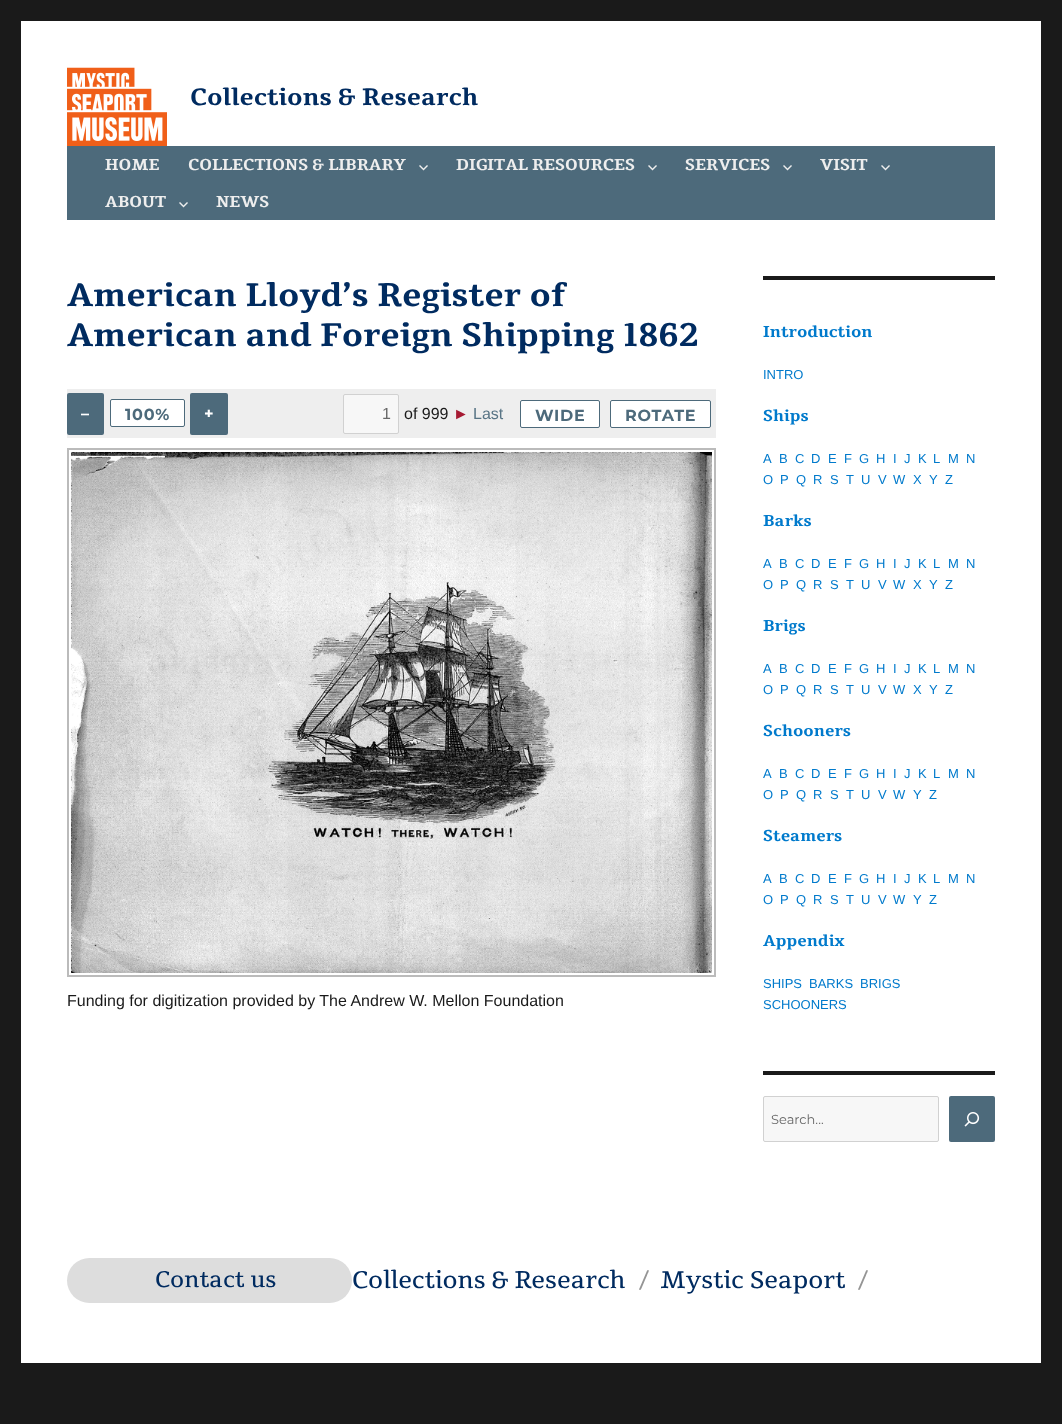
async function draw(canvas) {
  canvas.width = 1062;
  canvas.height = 1424;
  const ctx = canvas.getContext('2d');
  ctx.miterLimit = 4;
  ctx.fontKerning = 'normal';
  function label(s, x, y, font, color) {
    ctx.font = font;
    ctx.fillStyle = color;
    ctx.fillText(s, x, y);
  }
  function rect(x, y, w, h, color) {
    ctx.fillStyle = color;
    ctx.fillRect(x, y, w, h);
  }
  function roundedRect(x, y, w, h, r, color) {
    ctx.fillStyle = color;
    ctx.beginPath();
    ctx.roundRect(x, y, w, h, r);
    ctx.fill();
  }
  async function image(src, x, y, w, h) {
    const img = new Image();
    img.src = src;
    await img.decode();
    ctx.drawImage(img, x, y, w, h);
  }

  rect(0, 0, 1062, 1424, '#1a1a1a');
  rect(21, 21, 1020, 1342, '#fff');
  await image('assets/img1.png', 67, 67, 100, 79);
  label('Collections & Research', 190, 105, 'bold 24px Tienne', '#002b60');
  rect(67, 146, 928, 74, '#4d6a7b');
  label('HOME', 105, 170, 'bold 16px Tienne', '#eee');
  label('COLLECTIONS & LIBRARY', 188, 170, 'bold 16px Tienne', '#eee');
  await image('assets/img2.png', 419, 165, 9, 6);
  label('DIGITAL RESOURCES', 456, 170, 'bold 16px Tienne', '#eee');
  await image('assets/img2.png', 648, 165, 9, 6);
  label('SERVICES', 685, 170, 'bold 16px Tienne', '#eee');
  await image('assets/img2.png', 783, 165, 9, 6);
  label('VISIT', 820, 170, 'bold 16px Tienne', '#eee');
  await image('assets/img2.png', 881, 165, 9, 6);
  label('ABOUT', 105, 207, 'bold 16px Tienne', '#eee');
  await image('assets/img2.png', 179, 202, 9, 6);
  label('NEWS', 216, 207, 'bold 16px Tienne', '#eee');
  label('American Lloyd’s Register of', 67, 306, 'bold 33px Tienne', '#002b60');
  label('American and Foreign Shipping 1862', 67, 346, 'bold 33px Tienne', '#002b60');
  rect(67, 389, 649, 49, '#eee');
  roundedRect(67, 393, 37, 42, 2, '#4d6a7b');
  ctx.letterSpacing = '0.75px';
  label('–', 81, 419, 'bold 16px Montserrat', '#fff');
  ctx.beginPath();
  ctx.roundRect(110.5, 399.5, 74, 27, 1.5);
  ctx.fill();
  ctx.strokeStyle = '#4d6a7b';
  ctx.stroke();
  label('100%', 125, 420, 'bold 16px Montserrat', '#4d6a7b');
  roundedRect(190, 393, 38, 42, 2, '#4d6a7b');
  label('+', 204, 419, 'bold 16px Montserrat', '#fff');
  ctx.fillStyle = '#f7f7f7';
  ctx.beginPath();
  ctx.roundRect(343.5, 394.5, 55, 39, 1.5);
  ctx.fill();
  ctx.strokeStyle = '#d1d1d1';
  ctx.stroke();
  ctx.letterSpacing = '0px';
  label('1', 382, 419, '16px Liberation Sans', '#686868');
  label('of 999', 404, 419, '16px Liberation Sans', '#1a1a1a');
  label('►', 453, 419, '16px Liberation Sans', '#a61a32');
  label('Last', 473, 419, '16px Liberation Sans', '#587485');
  ctx.fillStyle = '#fff';
  ctx.beginPath();
  ctx.roundRect(520.5, 400.5, 79, 27, 1.5);
  ctx.fill();
  ctx.strokeStyle = '#4d6a7b';
  ctx.stroke();
  ctx.letterSpacing = '0.75px';
  label('WIDE', 535, 421, 'bold 16px Montserrat', '#4d6a7b');
  ctx.fillStyle = '#fff';
  ctx.beginPath();
  ctx.roundRect(610.5, 400.5, 100, 27, 1.5);
  ctx.fill();
  ctx.stroke();
  label('ROTATE', 625, 421, 'bold 16px Montserrat', '#4d6a7b');
  ctx.strokeStyle = '#bbb';
  ctx.lineWidth = 2;
  ctx.strokeRect(68, 449, 647, 527);
  await image('assets/img3.png', 71, 452, 641, 521);
  ctx.letterSpacing = '0px';
  label('Funding for digitization provided by The Andrew W. Mellon Foundation', 67, 1006, '16px Liberation Sans', '#1a1a1a');
  rect(763, 276, 232, 4, '#1a1a1a');
  label('Introduction', 763, 337, 'bold 16px Tienne', '#007acc');
  label('INTRO', 763, 379, '13px Liberation Sans', '#007acc');
  label('Ships', 763, 421, 'bold 16px Tienne', '#007acc');
  label('A', 763, 463, '13px Liberation Sans', '#007acc');
  label('B', 779, 463, '13px Liberation Sans', '#007acc');
  label('C', 795, 463, '13px Liberation Sans', '#007acc');
  label('D', 811, 463, '13px Liberation Sans', '#007acc');
  label('E', 828, 463, '13px Liberation Sans', '#007acc');
  label('F', 844, 463, '13px Liberation Sans', '#007acc');
  label('G', 859, 463, '13px Liberation Sans', '#007acc');
  label('H', 876, 463, '13px Liberation Sans', '#007acc');
  label('I', 893, 463, '13px Liberation Sans', '#007acc');
  label('J', 904, 463, '13px Liberation Sans', '#007acc');
  label('K', 918, 463, '13px Liberation Sans', '#007acc');
  label('L', 933, 463, '13px Liberation Sans', '#007acc');
  label('M', 948, 463, '13px Liberation Sans', '#007acc');
  label('N', 966, 463, '13px Liberation Sans', '#007acc');
  label('O', 763, 484, '13px Liberation Sans', '#007acc');
  label('P', 780, 484, '13px Liberation Sans', '#007acc');
  label('Q', 796, 484, '13px Liberation Sans', '#007acc');
  label('R', 813, 484, '13px Liberation Sans', '#007acc');
  label('S', 830, 484, '13px Liberation Sans', '#007acc');
  label('T', 846, 484, '13px Liberation Sans', '#007acc');
  label('U', 861, 484, '13px Liberation Sans', '#007acc');
  label('V', 878, 484, '13px Liberation Sans', '#007acc');
  label('W', 893, 484, '13px Liberation Sans', '#007acc');
  label('X', 913, 484, '13px Liberation Sans', '#007acc');
  label('Y', 929, 484, '13px Liberation Sans', '#007acc');
  label('Z', 945, 484, '13px Liberation Sans', '#007acc');
  label('Barks', 763, 526, 'bold 16px Tienne', '#007acc');
  label('A', 763, 568, '13px Liberation Sans', '#007acc');
  label('B', 779, 568, '13px Liberation Sans', '#007acc');
  label('C', 795, 568, '13px Liberation Sans', '#007acc');
  label('D', 811, 568, '13px Liberation Sans', '#007acc');
  label('E', 828, 568, '13px Liberation Sans', '#007acc');
  label('F', 844, 568, '13px Liberation Sans', '#007acc');
  label('G', 859, 568, '13px Liberation Sans', '#007acc');
  label('H', 876, 568, '13px Liberation Sans', '#007acc');
  label('I', 893, 568, '13px Liberation Sans', '#007acc');
  label('J', 904, 568, '13px Liberation Sans', '#007acc');
  label('K', 918, 568, '13px Liberation Sans', '#007acc');
  label('L', 933, 568, '13px Liberation Sans', '#007acc');
  label('M', 948, 568, '13px Liberation Sans', '#007acc');
  label('N', 966, 568, '13px Liberation Sans', '#007acc');
  label('O', 763, 589, '13px Liberation Sans', '#007acc');
  label('P', 780, 589, '13px Liberation Sans', '#007acc');
  label('Q', 796, 589, '13px Liberation Sans', '#007acc');
  label('R', 813, 589, '13px Liberation Sans', '#007acc');
  label('S', 830, 589, '13px Liberation Sans', '#007acc');
  label('T', 846, 589, '13px Liberation Sans', '#007acc');
  label('U', 861, 589, '13px Liberation Sans', '#007acc');
  label('V', 878, 589, '13px Liberation Sans', '#007acc');
  label('W', 893, 589, '13px Liberation Sans', '#007acc');
  label('X', 913, 589, '13px Liberation Sans', '#007acc');
  label('Y', 929, 589, '13px Liberation Sans', '#007acc');
  label('Z', 945, 589, '13px Liberation Sans', '#007acc');
  label('Brigs', 763, 631, 'bold 16px Tienne', '#007acc');
  label('A', 763, 673, '13px Liberation Sans', '#007acc');
  label('B', 779, 673, '13px Liberation Sans', '#007acc');
  label('C', 795, 673, '13px Liberation Sans', '#007acc');
  label('D', 811, 673, '13px Liberation Sans', '#007acc');
  label('E', 828, 673, '13px Liberation Sans', '#007acc');
  label('F', 844, 673, '13px Liberation Sans', '#007acc');
  label('G', 859, 673, '13px Liberation Sans', '#007acc');
  label('H', 876, 673, '13px Liberation Sans', '#007acc');
  label('I', 893, 673, '13px Liberation Sans', '#007acc');
  label('J', 904, 673, '13px Liberation Sans', '#007acc');
  label('K', 918, 673, '13px Liberation Sans', '#007acc');
  label('L', 933, 673, '13px Liberation Sans', '#007acc');
  label('M', 948, 673, '13px Liberation Sans', '#007acc');
  label('N', 966, 673, '13px Liberation Sans', '#007acc');
  label('O', 763, 694, '13px Liberation Sans', '#007acc');
  label('P', 780, 694, '13px Liberation Sans', '#007acc');
  label('Q', 796, 694, '13px Liberation Sans', '#007acc');
  label('R', 813, 694, '13px Liberation Sans', '#007acc');
  label('S', 830, 694, '13px Liberation Sans', '#007acc');
  label('T', 846, 694, '13px Liberation Sans', '#007acc');
  label('U', 861, 694, '13px Liberation Sans', '#007acc');
  label('V', 878, 694, '13px Liberation Sans', '#007acc');
  label('W', 893, 694, '13px Liberation Sans', '#007acc');
  label('X', 913, 694, '13px Liberation Sans', '#007acc');
  label('Y', 929, 694, '13px Liberation Sans', '#007acc');
  label('Z', 945, 694, '13px Liberation Sans', '#007acc');
  label('Schooners', 763, 736, 'bold 16px Tienne', '#007acc');
  label('A', 763, 778, '13px Liberation Sans', '#007acc');
  label('B', 779, 778, '13px Liberation Sans', '#007acc');
  label('C', 795, 778, '13px Liberation Sans', '#007acc');
  label('D', 811, 778, '13px Liberation Sans', '#007acc');
  label('E', 828, 778, '13px Liberation Sans', '#007acc');
  label('F', 844, 778, '13px Liberation Sans', '#007acc');
  label('G', 859, 778, '13px Liberation Sans', '#007acc');
  label('H', 876, 778, '13px Liberation Sans', '#007acc');
  label('I', 893, 778, '13px Liberation Sans', '#007acc');
  label('J', 904, 778, '13px Liberation Sans', '#007acc');
  label('K', 918, 778, '13px Liberation Sans', '#007acc');
  label('L', 933, 778, '13px Liberation Sans', '#007acc');
  label('M', 948, 778, '13px Liberation Sans', '#007acc');
  label('N', 966, 778, '13px Liberation Sans', '#007acc');
  label('O', 763, 799, '13px Liberation Sans', '#007acc');
  label('P', 780, 799, '13px Liberation Sans', '#007acc');
  label('Q', 796, 799, '13px Liberation Sans', '#007acc');
  label('R', 813, 799, '13px Liberation Sans', '#007acc');
  label('S', 830, 799, '13px Liberation Sans', '#007acc');
  label('T', 846, 799, '13px Liberation Sans', '#007acc');
  label('U', 861, 799, '13px Liberation Sans', '#007acc');
  label('V', 878, 799, '13px Liberation Sans', '#007acc');
  label('W', 893, 799, '13px Liberation Sans', '#007acc');
  label('Y', 913, 799, '13px Liberation Sans', '#007acc');
  label('Z', 929, 799, '13px Liberation Sans', '#007acc');
  label('Steamers', 763, 841, 'bold 16px Tienne', '#007acc');
  label('A', 763, 883, '13px Liberation Sans', '#007acc');
  label('B', 779, 883, '13px Liberation Sans', '#007acc');
  label('C', 795, 883, '13px Liberation Sans', '#007acc');
  label('D', 811, 883, '13px Liberation Sans', '#007acc');
  label('E', 828, 883, '13px Liberation Sans', '#007acc');
  label('F', 844, 883, '13px Liberation Sans', '#007acc');
  label('G', 859, 883, '13px Liberation Sans', '#007acc');
  label('H', 876, 883, '13px Liberation Sans', '#007acc');
  label('I', 893, 883, '13px Liberation Sans', '#007acc');
  label('J', 904, 883, '13px Liberation Sans', '#007acc');
  label('K', 918, 883, '13px Liberation Sans', '#007acc');
  label('L', 933, 883, '13px Liberation Sans', '#007acc');
  label('M', 948, 883, '13px Liberation Sans', '#007acc');
  label('N', 966, 883, '13px Liberation Sans', '#007acc');
  label('O', 763, 904, '13px Liberation Sans', '#007acc');
  label('P', 780, 904, '13px Liberation Sans', '#007acc');
  label('Q', 796, 904, '13px Liberation Sans', '#007acc');
  label('R', 813, 904, '13px Liberation Sans', '#007acc');
  label('S', 830, 904, '13px Liberation Sans', '#007acc');
  label('T', 846, 904, '13px Liberation Sans', '#007acc');
  label('U', 861, 904, '13px Liberation Sans', '#007acc');
  label('V', 878, 904, '13px Liberation Sans', '#007acc');
  label('W', 893, 904, '13px Liberation Sans', '#007acc');
  label('Y', 913, 904, '13px Liberation Sans', '#007acc');
  label('Z', 929, 904, '13px Liberation Sans', '#007acc');
  label('Appendix', 763, 946, 'bold 16px Tienne', '#007acc');
  label('SHIPS', 763, 988, '13px Liberation Sans', '#007acc');
  label('BARKS', 809, 988, '13px Liberation Sans', '#007acc');
  label('BRIGS', 860, 988, '13px Liberation Sans', '#007acc');
  label('SCHOONERS', 763, 1009, '13px Liberation Sans', '#007acc');
  rect(763, 1071, 232, 4, '#1a1a1a');
  ctx.fillStyle = '#f7f7f7';
  ctx.beginPath();
  ctx.roundRect(763.5, 1096.5, 175, 45, 1.5);
  ctx.fill();
  ctx.strokeStyle = '#d1d1d1';
  ctx.lineWidth = 1;
  ctx.stroke();
  label('Search...', 771, 1124, '13px Montserrat', '#686868');
  roundedRect(949, 1096, 46, 46, 2, '#4d6a7b');
  await image('assets/img4.png', 964, 1112, 16, 15);
  roundedRect(67, 1258, 285, 45, 22.5, '#ddd');
  label('Contact us', 155, 1287, '22.5px Tienne', '#002b60');
  label('Collections & Research', 352, 1288, '24px Tienne', '#002b60');
  label('/', 639, 1288, '24px Tienne', '#959595');
  label('Mystic Seaport', 660, 1288, '24px Tienne', '#002b60');
  label('/', 858, 1288, '24px Tienne', '#959595');
}

draw(document.querySelector('canvas'));
